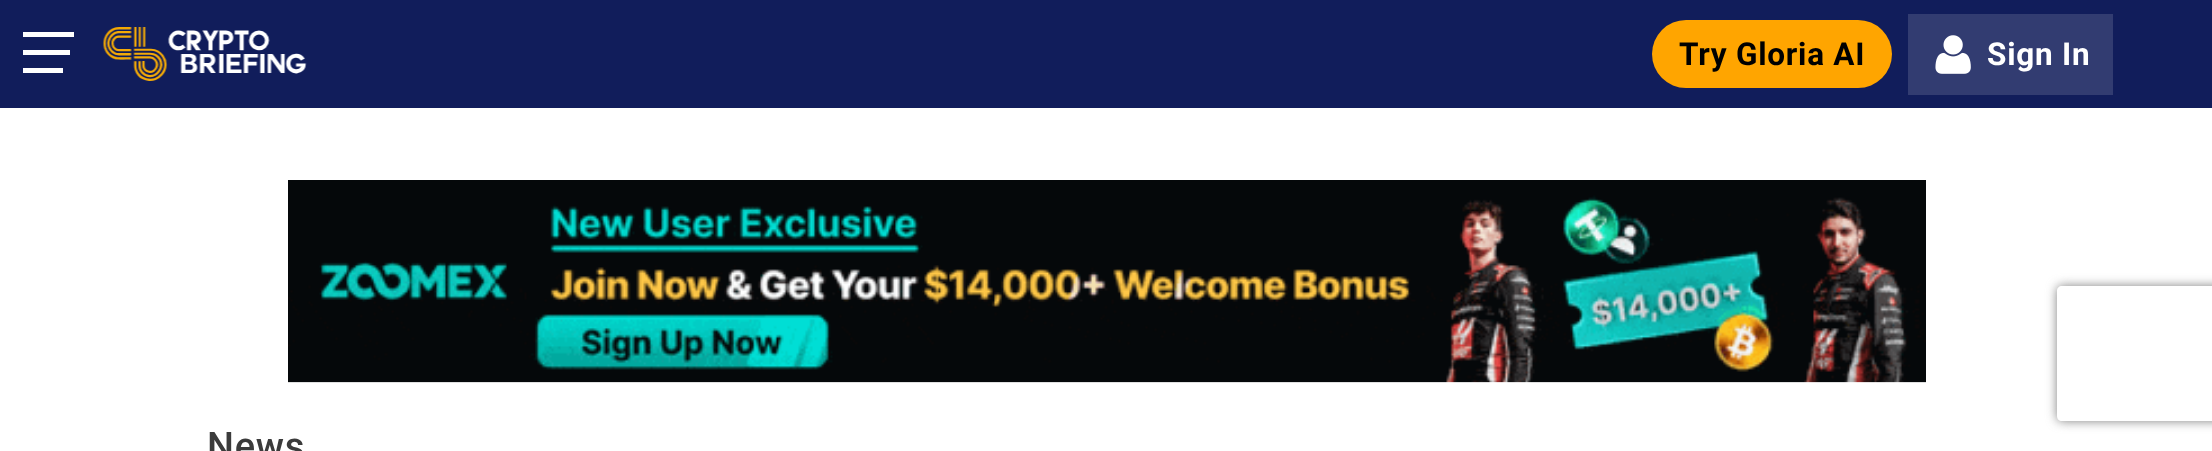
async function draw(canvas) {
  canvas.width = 2212;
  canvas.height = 451;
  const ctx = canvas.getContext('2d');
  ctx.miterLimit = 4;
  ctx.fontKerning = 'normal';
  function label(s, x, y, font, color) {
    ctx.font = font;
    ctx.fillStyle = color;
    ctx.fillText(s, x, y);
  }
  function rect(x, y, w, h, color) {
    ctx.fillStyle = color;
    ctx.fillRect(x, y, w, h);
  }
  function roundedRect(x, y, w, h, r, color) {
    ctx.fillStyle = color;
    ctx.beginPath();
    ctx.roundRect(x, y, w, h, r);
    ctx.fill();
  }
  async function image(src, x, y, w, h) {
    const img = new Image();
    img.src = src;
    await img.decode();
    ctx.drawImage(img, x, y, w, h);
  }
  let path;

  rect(0, 0, 2212, 451, '#fff');
  rect(0, 0, 2212, 108, '#111d5b');
  rect(23, 32, 51, 5, '#fff');
  rect(23, 50, 47, 5, '#fff');
  rect(23, 68, 40, 5, '#fff');
  await image('assets/img1.png', 103, 27, 204, 54);
  roundedRect(1652, 20, 240, 68, 34, '#ffa500');
  ctx.letterSpacing = '0.75px';
  label('Try Gloria AI', 1679, 65, 'bold 31.5px Roboto', '#000');
  rect(1908, 14, 205, 81, '#323c71');
  await image('assets/img2.png', 1935, 35, 36, 39);
  label('Sign In', 1987, 65, 'bold 31.5px Roboto', '#fff');
  ctx.save();
  path = new Path2D('M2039 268H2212V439H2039ZM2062 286H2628C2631 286 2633 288 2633 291V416C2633 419 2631 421 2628 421H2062C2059 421 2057 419 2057 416V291C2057 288 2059 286 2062 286Z');
  ctx.clip(path, 'evenodd');
  ctx.fillStyle = '#808080';
  ctx.filter = 'blur(5.5px)';
  ctx.beginPath();
  ctx.roundRect(2057, 286, 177, 135, 5);
  ctx.fill();
  ctx.filter = 'none';
  ctx.restore();
  await image('assets/img3.png', 288, 180, 1638, 203);
  label('News', 207, 459, '500 38px Roboto', '#3b3b3b');
}

draw(document.querySelector('canvas'));
